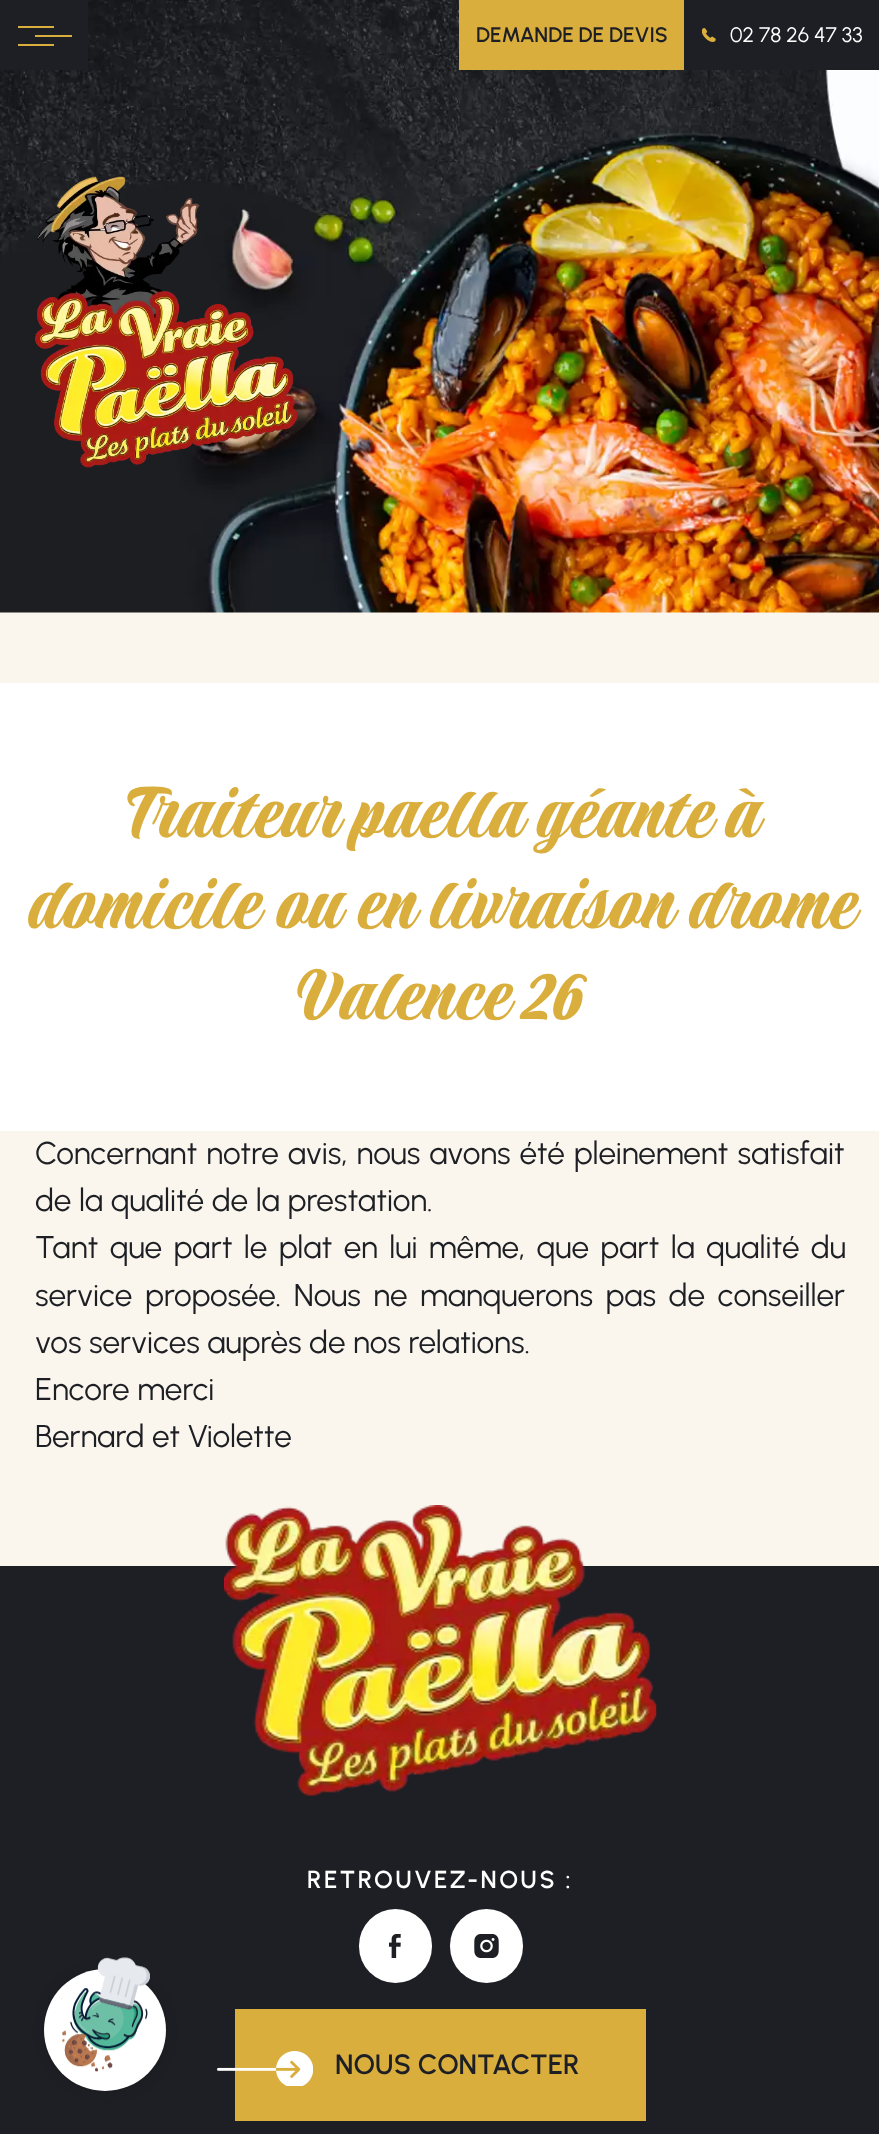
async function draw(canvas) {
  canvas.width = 879;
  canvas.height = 2134;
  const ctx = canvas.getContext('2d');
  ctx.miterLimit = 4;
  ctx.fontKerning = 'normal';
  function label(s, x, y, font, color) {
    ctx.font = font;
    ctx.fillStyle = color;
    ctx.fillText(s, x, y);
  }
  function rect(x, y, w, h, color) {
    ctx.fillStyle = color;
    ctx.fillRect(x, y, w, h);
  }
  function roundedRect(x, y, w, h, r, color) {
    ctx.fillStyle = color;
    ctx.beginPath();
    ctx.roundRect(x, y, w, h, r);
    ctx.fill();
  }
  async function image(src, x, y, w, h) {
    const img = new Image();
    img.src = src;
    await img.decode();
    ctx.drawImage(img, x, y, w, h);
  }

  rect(0, 0, 879, 2134, '#faf6ed');
  await image('assets/img3.png', 0, 0, 879, 613);
  rect(0, 0, 88, 70, '#1d1f24');
  rect(18, 26, 36, 2, '#d9ae3d');
  rect(35, 35, 37, 2, '#d9ae3d');
  rect(18, 44, 36, 2, '#d9ae3d');
  rect(459, 0, 225, 70, '#d9ae3d');
  label('DEMANDE DE DEVIS', 476, 42, '600 21px Urbanist', '#1d1f24');
  rect(684, 0, 195, 70, '#1d1f24');
  await image('assets/img1.png', 702, 28, 14, 14);
  label('02 78 26 47 33', 730, 42, '21px Urbanist', '#fff');
  await image('assets/img2.png', 35, 176, 263, 292);
  rect(0, 683, 879, 448, '#fff');
  label('Traiteur paella géante à', 123, 837, '82.25px Praise', '#d9ae3d');
  label('domicile ou en livraison drome', 26, 928, '82.25px Praise', '#d9ae3d');
  label('Valence 26', 296, 1019, '82.25px Praise', '#d9ae3d');
  ctx.wordSpacing = '1.5px';
  label('Concernant notre avis, nous avons été pleinement satisfait', 35, 1164, '31.5px Urbanist', '#1d1f24');
  ctx.wordSpacing = '0px';
  label('de la qualité de la prestation.', 35, 1211, '31.5px Urbanist', '#1d1f24');
  ctx.wordSpacing = '3.75px';
  label('Tant que part le plat en lui même, que part la qualité du', 35, 1258, '31.5px Urbanist', '#1d1f24');
  ctx.wordSpacing = '5px';
  label('service proposée. Nous ne manquerons pas de conseiller', 35, 1306, '31.5px Urbanist', '#1d1f24');
  ctx.wordSpacing = '0px';
  label('vos services auprès de nos relations.', 35, 1353, '31.5px Urbanist', '#1d1f24');
  label('Encore merci', 35, 1400, '31.5px Urbanist', '#1d1f24');
  label('Bernard et Violette', 35, 1447, '31.5px Urbanist', '#1d1f24');
  rect(0, 1566, 879, 568, '#1d1f24');
  ctx.fillStyle = '#00000066';
  ctx.filter = 'blur(9px)';
  ctx.beginPath();
  ctx.roundRect(53, 1978, 105, 105, 52.5);
  ctx.fill();
  ctx.filter = 'none';
  ctx.fillStyle = '#fff';
  ctx.beginPath();
  ctx.arc(105, 2030, 61, 0, 2 * Math.PI);
  ctx.fill();
  await image('assets/img4.png', 62, 1957, 88, 116);
  await image('assets/img5.png', 224, 1505, 433, 291);
  ctx.letterSpacing = '2.5px';
  label('RETROUVEZ-NOUS :', 307, 1888, '600 24.5px Urbanist', '#fff');
  roundedRect(359, 1909, 73, 74, 36.5, '#fff');
  await image('assets/img6.png', 389, 1934, 12, 24);
  roundedRect(450, 1909, 73, 74, 36.5, '#fff');
  await image('assets/img7.png', 474, 1934, 25, 24);
  rect(235, 2009, 411, 112, '#d9ae3d');
  await image('assets/img8.png', 217, 2051, 96, 35);
  ctx.letterSpacing = '0px';
  label('NOUS CONTACTER', 335, 2074, '600 28px Urbanist', '#1d1f24');
}

draw(document.querySelector('canvas'));
